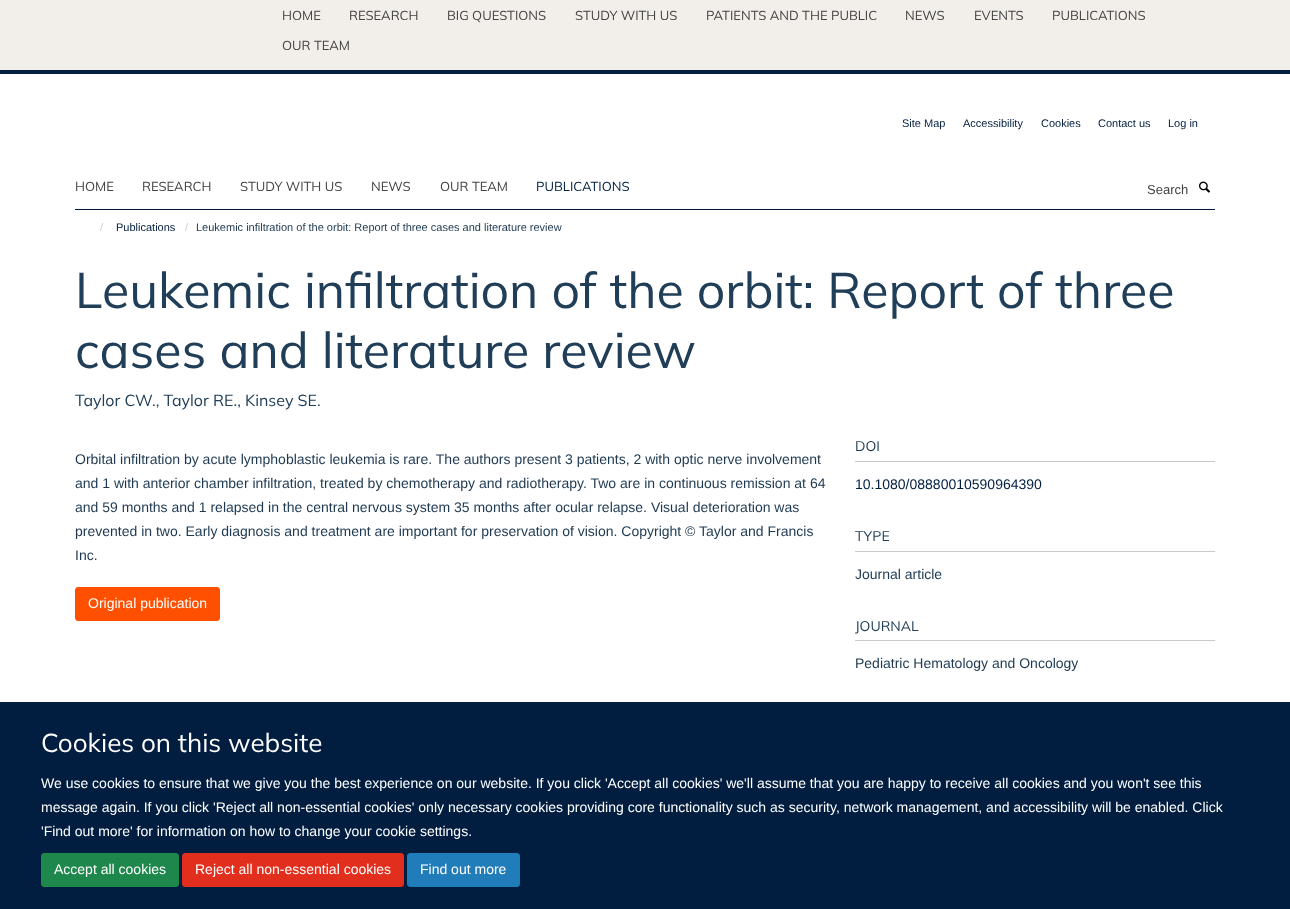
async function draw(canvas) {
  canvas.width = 1290;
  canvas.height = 909;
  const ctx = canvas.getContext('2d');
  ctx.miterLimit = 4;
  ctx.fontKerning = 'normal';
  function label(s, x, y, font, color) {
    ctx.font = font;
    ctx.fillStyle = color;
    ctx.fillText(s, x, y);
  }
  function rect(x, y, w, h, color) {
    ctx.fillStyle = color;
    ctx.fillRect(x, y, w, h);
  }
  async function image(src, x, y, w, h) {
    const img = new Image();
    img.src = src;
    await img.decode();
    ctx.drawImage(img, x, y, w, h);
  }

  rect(0, 0, 1290, 909, '#fff');
  rect(0, 0, 1290, 70, '#f2efeb');
  rect(0, 70, 1290, 4, '#011e41');
  label('HOME', 282, 20, '13px Mulish', '#444');
  label('RESEARCH', 349, 20, '13px Mulish', '#444');
  label('BIG QUESTIONS', 447, 20, '13px Mulish', '#444');
  label('STUDY WITH US', 575, 20, '13px Mulish', '#444');
  label('PATIENTS AND THE PUBLIC', 706, 20, '13px Mulish', '#444');
  label('NEWS', 905, 20, '13px Mulish', '#444');
  label('EVENTS', 974, 20, '13px Mulish', '#444');
  label('PUBLICATIONS', 1052, 20, '13px Mulish', '#444');
  label('OUR TEAM', 282, 50, '13px Mulish', '#444');
  label('Site Map', 902, 127, '11px Liberation Sans', '#011e41');
  label('Accessibility', 963, 127, '11px Liberation Sans', '#011e41');
  label('Cookies', 1041, 127, '11px Liberation Sans', '#011e41');
  label('Contact us', 1098, 127, '11px Liberation Sans', '#011e41');
  label('Log in', 1168, 127, '11px Liberation Sans', '#011e41');
  rect(75, 209, 1140, 1, '#011e41');
  label('HOME', 75, 191, '13px Mulish', '#444');
  label('RESEARCH', 142, 191, '13px Mulish', '#444');
  label('STUDY WITH US', 240, 191, '13px Mulish', '#444');
  label('NEWS', 371, 191, '13px Mulish', '#444');
  label('OUR TEAM', 440, 191, '13px Mulish', '#444');
  label('PUBLICATIONS', 536, 191, '13px Mulish', '#011e41');
  label('Search', 1147, 194, '13px Liberation Sans', '#444');
  await image('assets/img1.png', 1199, 181, 11, 12);
  label('/', 100, 231, '11px Liberation Sans', '#ccc');
  label('Publications', 116, 231, '11px Liberation Sans', '#011e41');
  label('/', 185, 231, '11px Liberation Sans', '#ccc');
  label('Leukemic infiltration of the orbit: Report of three cases and literature review', 196, 231, '11px Liberation Sans', '#1d3850');
  label('Leukemic infiltration of the orbit: Report of three', 75, 308, '50px Mulish', '#203e58');
  label('cases and literature review', 75, 368, '50px Mulish', '#203e58');
  label('Taylor CW., Taylor RE., Kinsey SE.', 75, 406, '16px Mulish', '#203e58');
  label('Orbital infiltration by acute lymphoblastic leukemia is rare. The authors present 3 patients, 2 with optic nerve involvement', 75, 464, '14px Liberation Sans', '#1d3850');
  label('and 1 with anterior chamber infiltration, treated by chemotherapy and radiotherapy. Two are in continuous remission at 64', 75, 488, '14px Liberation Sans', '#1d3850');
  label('and 59 months and 1 relapsed in the central nervous system 35 months after ocular relapse. Visual deterioration was', 75, 512, '14px Liberation Sans', '#1d3850');
  label('prevented in two. Early diagnosis and treatment are important for preservation of vision. Copyright © Taylor and Francis', 75, 536, '14px Liberation Sans', '#1d3850');
  label('Inc.', 75, 560, '14px Liberation Sans', '#1d3850');
  ctx.fillStyle = '#fe5000';
  ctx.beginPath();
  ctx.roundRect(75.5, 587.5, 144, 33, 2.5);
  ctx.fill();
  ctx.strokeStyle = '#fe5000';
  ctx.stroke();
  label('Original publication', 88, 608, '14px Liberation Sans', '#fff');
  rect(855, 461, 360, 1, '#c6cacf');
  label('DOI', 855, 451, '14px Mulish', '#203e58');
  label('10.1080/08880010590964390', 855, 489, '14px Liberation Sans', '#011e41');
  rect(855, 551, 360, 1, '#c6cacf');
  label('TYPE', 855, 541, '14px Mulish', '#203e58');
  label('Journal article', 855, 579, '14px Liberation Sans', '#1d3850');
  rect(855, 640, 360, 1, '#c6cacf');
  label('JOURNAL', 855, 631, '14px Mulish', '#203e58');
  label('Pediatric Hematology and Oncology', 855, 668, '14px Liberation Sans', '#1d3850');
  rect(0, 702, 1290, 207, '#011e41');
  label('Cookies on this website', 41, 752, '26px Mulish', '#fff');
  label('We use cookies to ensure that we give you the best experience on our website. If you click \'Accept all cookies\' we\'ll assume that you are happy to receive all cookies and you won\'t see this', 41, 788, '14px Liberation Sans', '#fff');
  label('message again. If you click \'Reject all non-essential cookies\' only necessary cookies providing core functionality such as security, network management, and accessibility will be enabled. Click', 41, 812, '14px Liberation Sans', '#fff');
  label('\'Find out more\' for information on how to change your cookie settings.', 41, 836, '14px Liberation Sans', '#fff');
  ctx.fillStyle = '#1e874b';
  ctx.beginPath();
  ctx.roundRect(41.5, 853.5, 137, 33, 2.5);
  ctx.fill();
  ctx.strokeStyle = '#1e874b';
  ctx.stroke();
  label('Accept all cookies', 54, 874, '14px Liberation Sans', '#fff');
  ctx.fillStyle = '#e22e1c';
  ctx.beginPath();
  ctx.roundRect(182.5, 853.5, 221, 33, 2.5);
  ctx.fill();
  ctx.strokeStyle = '#e22e1c';
  ctx.stroke();
  label('Reject all non-essential cookies', 195, 874, '14px Liberation Sans', '#fff');
  ctx.fillStyle = '#217cba';
  ctx.beginPath();
  ctx.roundRect(407.5, 853.5, 112, 33, 2.5);
  ctx.fill();
  ctx.strokeStyle = '#217cba';
  ctx.stroke();
  label('Find out more', 420, 874, '14px Liberation Sans', '#fff');
}

draw(document.querySelector('canvas'));
